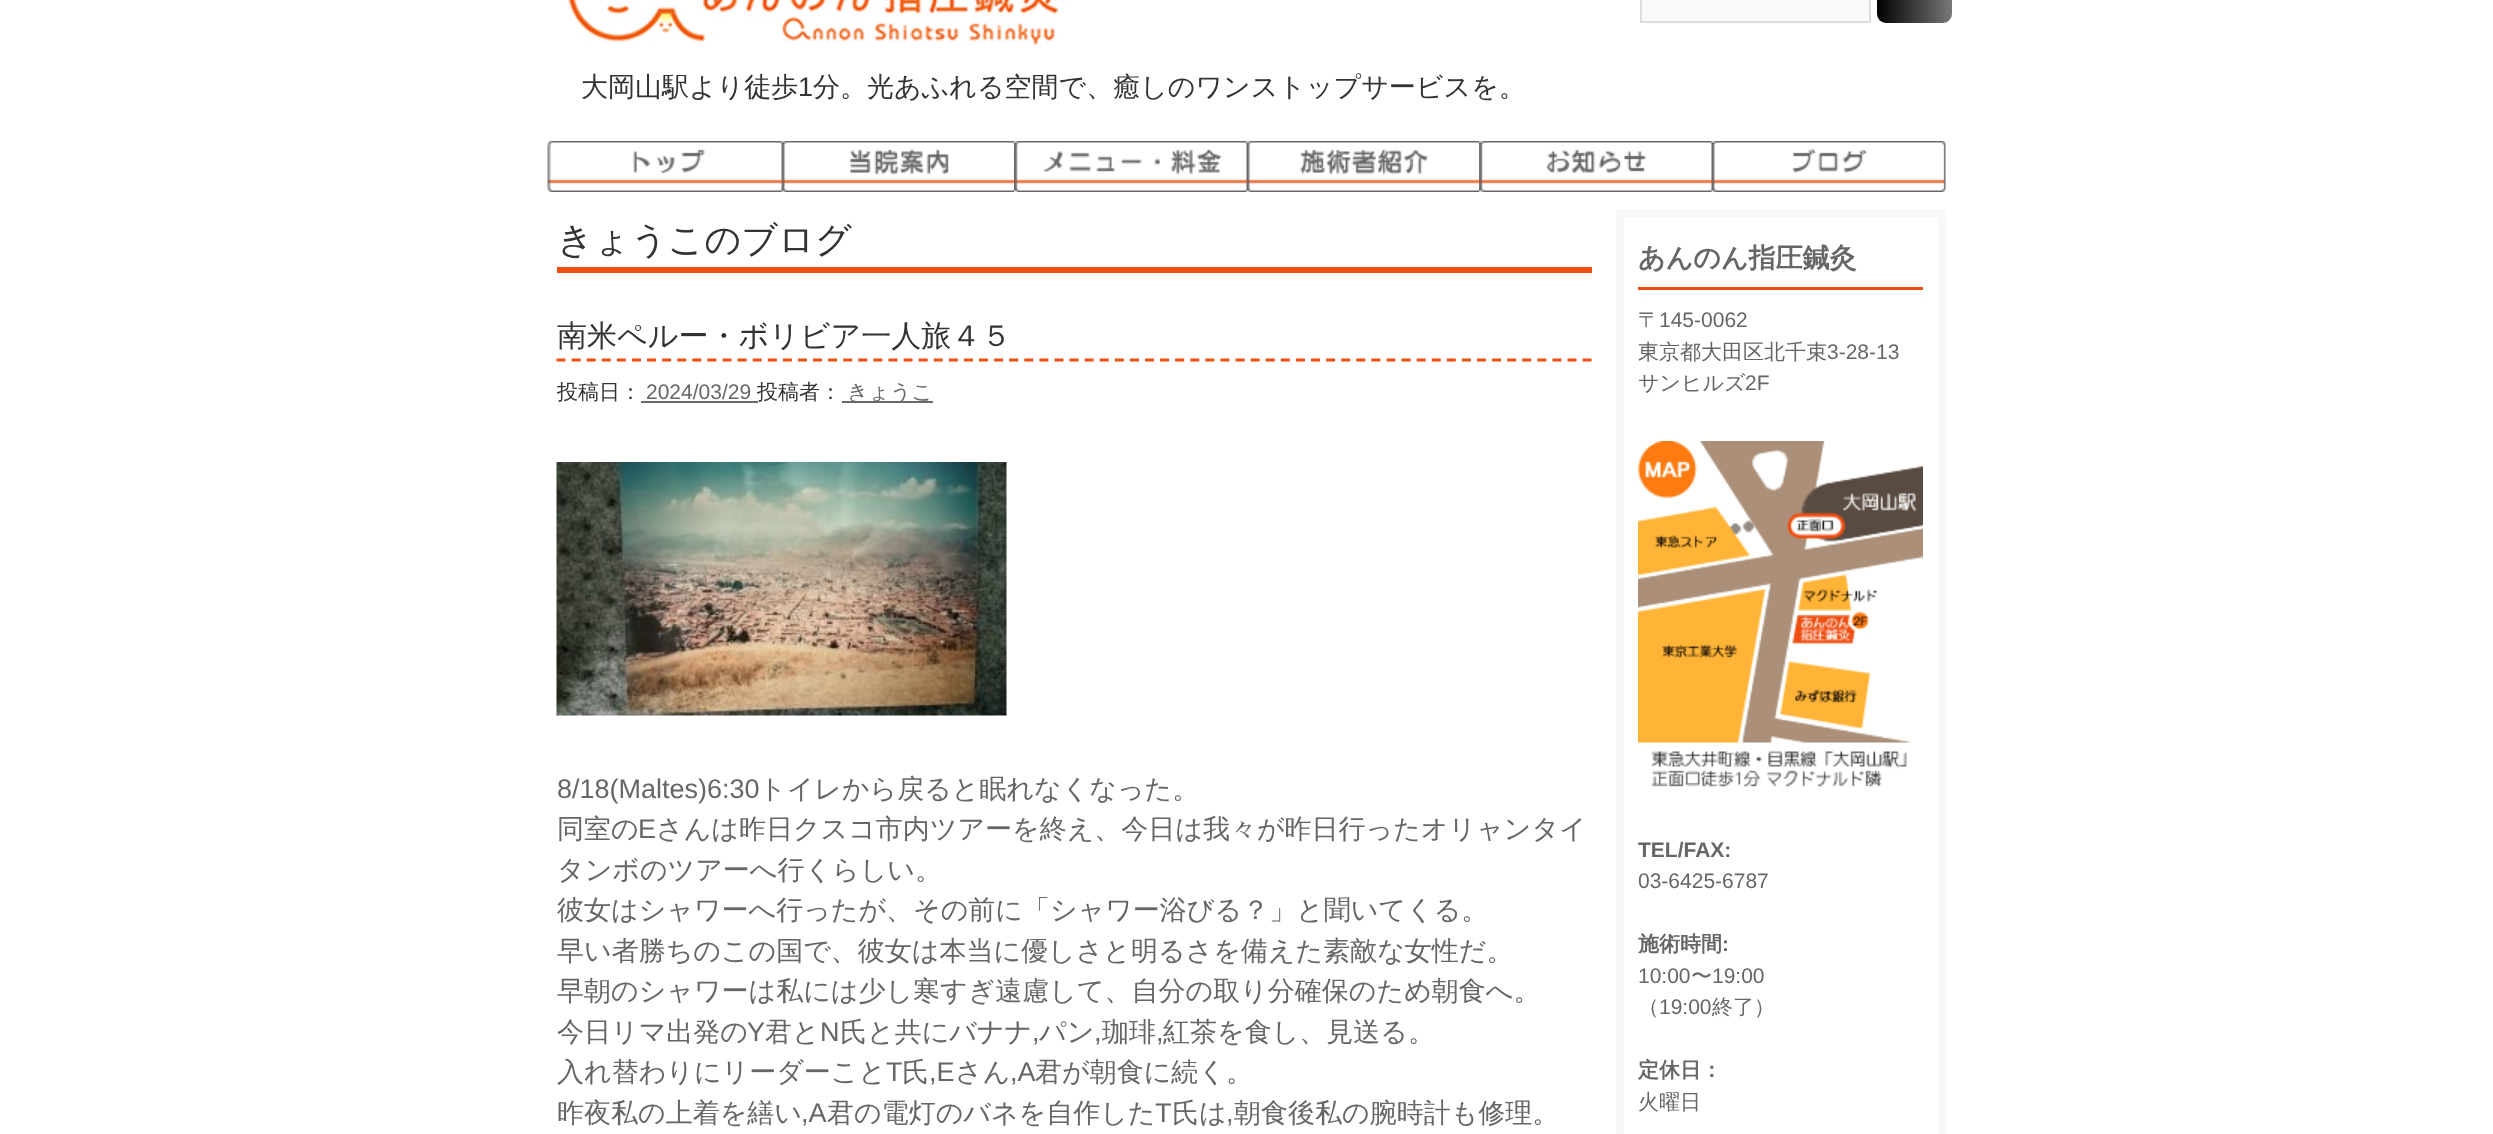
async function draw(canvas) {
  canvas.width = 2493;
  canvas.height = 1134;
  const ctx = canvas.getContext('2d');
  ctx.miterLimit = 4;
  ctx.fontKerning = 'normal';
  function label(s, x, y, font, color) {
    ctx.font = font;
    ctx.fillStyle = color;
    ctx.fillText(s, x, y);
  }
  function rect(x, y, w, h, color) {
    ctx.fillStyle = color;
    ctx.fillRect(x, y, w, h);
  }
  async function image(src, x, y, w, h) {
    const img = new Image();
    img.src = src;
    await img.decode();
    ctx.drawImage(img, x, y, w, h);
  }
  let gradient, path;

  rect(0, 0, 2493, 1134, '#fff');
  ctx.fillStyle = '#fafafa';
  ctx.beginPath();
  ctx.rect(1641, -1, 229, 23);
  ctx.fill();
  ctx.strokeStyle = '#ddd';
  ctx.lineWidth = 2;
  ctx.stroke();
  gradient = ctx.createLinearGradient(1952, 0, 1877, 0);
  gradient.addColorStop(0, '#787878');
  gradient.addColorStop(1, '#000');
  ctx.fillStyle = gradient;
  ctx.beginPath();
  ctx.roundRect(1877, -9, 75, 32, 9);
  ctx.fill();
  await image('assets/img1.png', 567, 0, 492, 45);
  label('大岡山駅より徒歩', 581, 96, '500 27px WenQuanYi Zen Hei', '#333');
  label('1', 798, 96, '27px Liberation Sans', '#333');
  label('分。光あふれる空間で、癒しのワンストップサービスを。', 813, 96, '500 27px WenQuanYi Zen Hei', '#333');
  await image('assets/img2.png', 547, 141, 235, 51);
  await image('assets/img3.png', 781, 141, 233, 51);
  await image('assets/img4.png', 1014, 141, 233, 51);
  await image('assets/img5.png', 1246, 141, 233, 51);
  await image('assets/img6.png', 1479, 141, 233, 51);
  await image('assets/img7.png', 1711, 141, 235, 51);
  rect(557, 267, 1035, 6, '#f04e11');
  label('きょうこのブログ', 557, 252, '500 36px WenQuanYi Zen Hei', '#333');
  path = new Path2D('M556.5 360H1591.5');
  ctx.strokeStyle = '#f04e11';
  ctx.lineWidth = 3;
  ctx.setLineDash([9, 6.09]);
  ctx.stroke(path);
  label('南米ペルー・ボリビア一人旅４５', 557, 346, '500 30px WenQuanYi Zen Hei', '#333');
  label('投稿日：', 557, 399, '500 21px WenQuanYi Zen Hei', '#333');
  label('2024/03/29', 646, 399, '21px Liberation Sans', '#666');
  rect(641, 401, 117, 2, '#696969');
  label('投稿者：', 757, 399, '500 21px WenQuanYi Zen Hei', '#333');
  rect(842, 401, 91, 2, '#696969');
  label('きょうこ', 847, 399, '500 21px WenQuanYi Zen Hei', '#666');
  await image('assets/img8.png', 556, 462, 451, 254);
  label('8/18(Maltes)6:30', 557, 798, '27px Liberation Sans', '#666');
  label('トイレから戻ると眠れなくなった。', 759, 798, '500 27px WenQuanYi Zen Hei', '#666');
  label('同室の', 557, 838, '500 27px WenQuanYi Zen Hei', '#666');
  label('E', 638, 838, '27px Liberation Sans', '#666');
  label('さんは昨日クスコ市内ツアーを終え、今日は我々が昨日行ったオリャンタイ', 656, 838, '500 27px WenQuanYi Zen Hei', '#666');
  label('タンボのツアーへ行くらしい。', 557, 879, '500 27px WenQuanYi Zen Hei', '#666');
  label('彼女はシャワーへ行ったが、その前に「シャワー浴びる？」と聞いてくる。', 557, 919, '500 27px WenQuanYi Zen Hei', '#666');
  label('早い者勝ちのこの国で、彼女は本当に優しさと明るさを備えた素敵な女性だ。', 557, 960, '500 27px WenQuanYi Zen Hei', '#666');
  label('早朝のシャワーは私には少し寒すぎ遠慮して、自分の取り分確保のため朝食へ。', 557, 1000, '500 27px WenQuanYi Zen Hei', '#666');
  label('今日リマ出発の', 557, 1041, '500 27px WenQuanYi Zen Hei', '#666');
  label('Y', 747, 1041, '27px Liberation Sans', '#666');
  label('君と', 765, 1041, '500 27px WenQuanYi Zen Hei', '#666');
  label('N', 820, 1041, '27px Liberation Sans', '#666');
  label('氏と共にバナナ', 840, 1041, '500 27px WenQuanYi Zen Hei', '#666');
  label(',', 1032, 1041, '27px Liberation Sans', '#666');
  label('パン', 1039, 1041, '500 27px WenQuanYi Zen Hei', '#666');
  label(',', 1094, 1041, '27px Liberation Sans', '#666');
  label('珈琲', 1102, 1041, '500 27px WenQuanYi Zen Hei', '#666');
  label(',', 1156, 1041, '27px Liberation Sans', '#666');
  label('紅茶を食し、見送る。', 1163, 1041, '500 27px WenQuanYi Zen Hei', '#666');
  label('入れ替わりにリーダーこと', 557, 1081, '500 27px WenQuanYi Zen Hei', '#666');
  label('T', 886, 1081, '27px Liberation Sans', '#666');
  label('氏', 902, 1081, '500 27px WenQuanYi Zen Hei', '#666');
  label(',E', 929, 1081, '27px Liberation Sans', '#666');
  label('さん', 955, 1081, '500 27px WenQuanYi Zen Hei', '#666');
  label(',A', 1010, 1081, '27px Liberation Sans', '#666');
  label('君が朝食に続く。', 1035, 1081, '500 27px WenQuanYi Zen Hei', '#666');
  label('昨夜私の上着を繕い', 557, 1122, '500 27px WenQuanYi Zen Hei', '#666');
  label(',A', 801, 1122, '27px Liberation Sans', '#666');
  label('君の電灯のバネを自作した', 827, 1122, '500 27px WenQuanYi Zen Hei', '#666');
  label('T', 1155, 1122, '27px Liberation Sans', '#666');
  label('氏は', 1172, 1122, '500 27px WenQuanYi Zen Hei', '#666');
  label(',', 1226, 1122, '27px Liberation Sans', '#666');
  label('朝食後私の腕時計も修理。', 1234, 1122, '500 27px WenQuanYi Zen Hei', '#666');
  ctx.strokeStyle = '#f8f8f8';
  ctx.lineWidth = 8;
  ctx.setLineDash([]);
  ctx.strokeRect(1620, 213, 322, 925);
  rect(1638, 287, 285, 3, '#f04e11');
  label('あんのん指圧鍼灸', 1638, 267, 'bold 27px WenQuanYi Zen Hei', '#666');
  label('〒', 1638, 327, '500 21px WenQuanYi Zen Hei', '#666');
  label('145-0062', 1659, 327, '21px Liberation Sans', '#666');
  label('東京都大田区北千束', 1638, 359, '500 21px WenQuanYi Zen Hei', '#666');
  label('3-28-13', 1827, 359, '21px Liberation Sans', '#666');
  label('サンヒルズ', 1638, 390, '500 21px WenQuanYi Zen Hei', '#666');
  label('2F', 1745, 390, '21px Liberation Sans', '#666');
  await image('assets/img9.png', 1638, 441, 285, 346);
  label('TEL/FAX:', 1638, 857, 'bold 21px Liberation Sans', '#666');
  label('03-6425-6787', 1638, 888, '21px Liberation Sans', '#666');
  label('施術時間', 1638, 951, 'bold 21px WenQuanYi Zen Hei', '#666');
  label(':', 1722, 951, 'bold 21px Liberation Sans', '#666');
  label('10:00', 1638, 983, '21px Liberation Sans', '#666');
  label('〜', 1691, 983, '500 21px WenQuanYi Zen Hei', '#666');
  label('19:00', 1712, 983, '21px Liberation Sans', '#666');
  label('（', 1638, 1014, '500 21px WenQuanYi Zen Hei', '#666');
  label('19:00', 1659, 1014, '21px Liberation Sans', '#666');
  label('終了）', 1712, 1014, '500 21px WenQuanYi Zen Hei', '#666');
  label('定休日：', 1638, 1077, 'bold 21px WenQuanYi Zen Hei', '#666');
  label('火曜日', 1638, 1109, '500 21px WenQuanYi Zen Hei', '#666');
}

draw(document.querySelector('canvas'));
